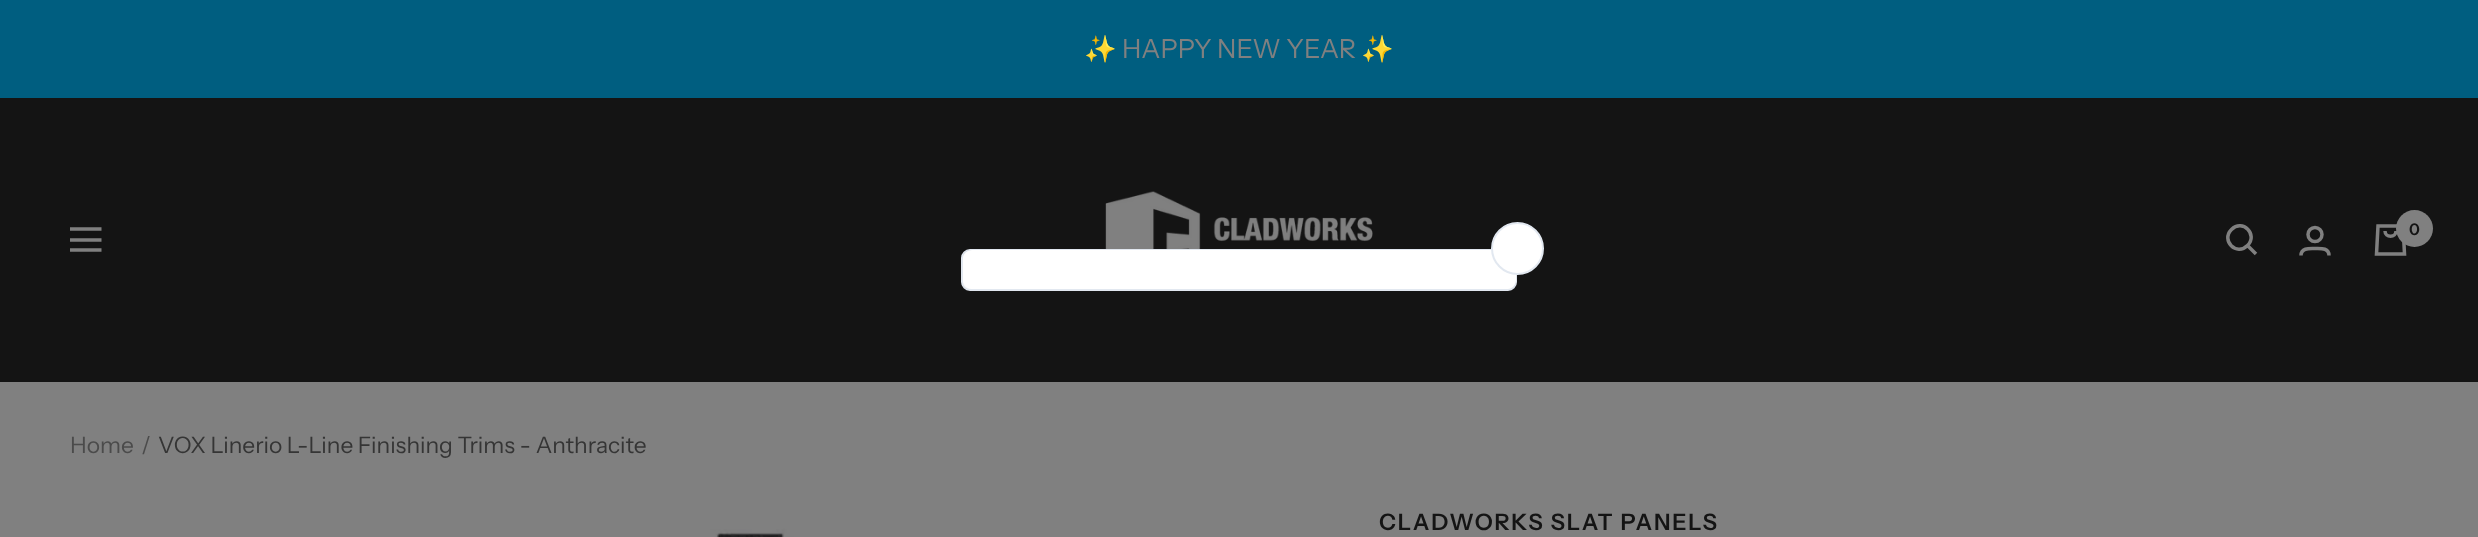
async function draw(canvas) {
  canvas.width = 2478;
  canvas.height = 537;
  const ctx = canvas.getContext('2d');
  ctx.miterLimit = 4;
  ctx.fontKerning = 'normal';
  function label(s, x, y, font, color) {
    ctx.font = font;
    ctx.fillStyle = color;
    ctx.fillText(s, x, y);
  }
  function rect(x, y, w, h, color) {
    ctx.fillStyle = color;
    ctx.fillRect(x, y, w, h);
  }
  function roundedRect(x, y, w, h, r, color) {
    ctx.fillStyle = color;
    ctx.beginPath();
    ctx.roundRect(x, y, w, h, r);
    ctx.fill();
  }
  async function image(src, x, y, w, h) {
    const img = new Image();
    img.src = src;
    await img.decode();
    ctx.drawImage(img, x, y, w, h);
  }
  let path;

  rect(0, 0, 2478, 537, '#808080');
  rect(0, 0, 2478, 98, '#005e80');
  label('✨', 1084, 58, '26.25px Noto Color Emoji', '#808080');
  label('HAPPY NEW YEAR', 1122, 58, '26.25px Instrument Sans', '#808080');
  label('✨', 1361, 58, '26.25px Noto Color Emoji', '#808080');
  rect(0, 98, 2478, 284, '#141414');
  ctx.fillStyle = '#fff';
  ctx.beginPath();
  ctx.roundRect(962, 250, 554, 40, 8);
  ctx.fill();
  ctx.strokeStyle = '#e2e8f0';
  ctx.lineWidth = 2;
  ctx.stroke();
  await image('assets/img1.png', 1105, 191, 268, 58);
  ctx.save();
  ctx.beginPath();
  ctx.rect(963, 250, 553, 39);
  ctx.clip();
  ctx.fillStyle = '#0000001f';
  ctx.filter = 'blur(17.5px)';
  ctx.beginPath();
  ctx.roundRect(968, 256, 542, 28, 2.5);
  ctx.fill();
  ctx.filter = 'none';
  ctx.restore();
  roundedRect(963, 250, 553, 39, 9, '#fff');
  ctx.beginPath();
  ctx.arc(1517.5, 248.5, 25.5, 0, 2 * Math.PI);
  ctx.fill();
  ctx.stroke();
  path = new Path2D('M70 229H101.5M70 250H101.5ZM70 240H101.5Z');
  ctx.strokeStyle = '#808080';
  ctx.lineWidth = 3.5;
  ctx.stroke(path);
  path = new Path2D('M2247.5 245.5C2258.5 234.5 2242.5 218.5 2231.5 229.5C2220.5 240.5 2236.5 256.5 2247.5 245.5ZM2247.5 245.5L2256 254');
  ctx.stroke(path);
  ctx.beginPath();
  ctx.arc(2315, 234.5, 7, 0, 2 * Math.PI);
  ctx.stroke();
  path = new Path2D('M2301 255.5C2301 247.5 2310 248.5 2315 248.5C2320.5 248.5 2329 247.5 2329 255.5');
  ctx.stroke(path);
  path = new Path2D('M2378 226H2403L2404.5 254H2376.5ZM2385 231C2385 238 2396 238 2396 231');
  ctx.stroke(path);
  ctx.fillStyle = '#808080';
  ctx.beginPath();
  ctx.arc(2414.5, 228.5, 18.5, 0, 2 * Math.PI);
  ctx.fill();
  label('0', 2409, 235, '600 16px Instrument Sans', '#141414');
  label('Home', 70, 453, '22.75px Instrument Sans', '#4b4b4b');
  label('/', 141, 453, '22.75px Instrument Sans', '#4b4b4b');
  label('VOX Linerio L-Line Finishing Trims - Anthracite', 158, 453, '22.75px Instrument Sans', '#353535');
  await image('assets/img2.png', 252, 508, 966, 29);
  ctx.letterSpacing = '1.75px';
  label('CLADWORKS SLAT PANELS', 1379, 530, '600 22.75px Instrument Sans', '#141414');
}

draw(document.querySelector('canvas'));
